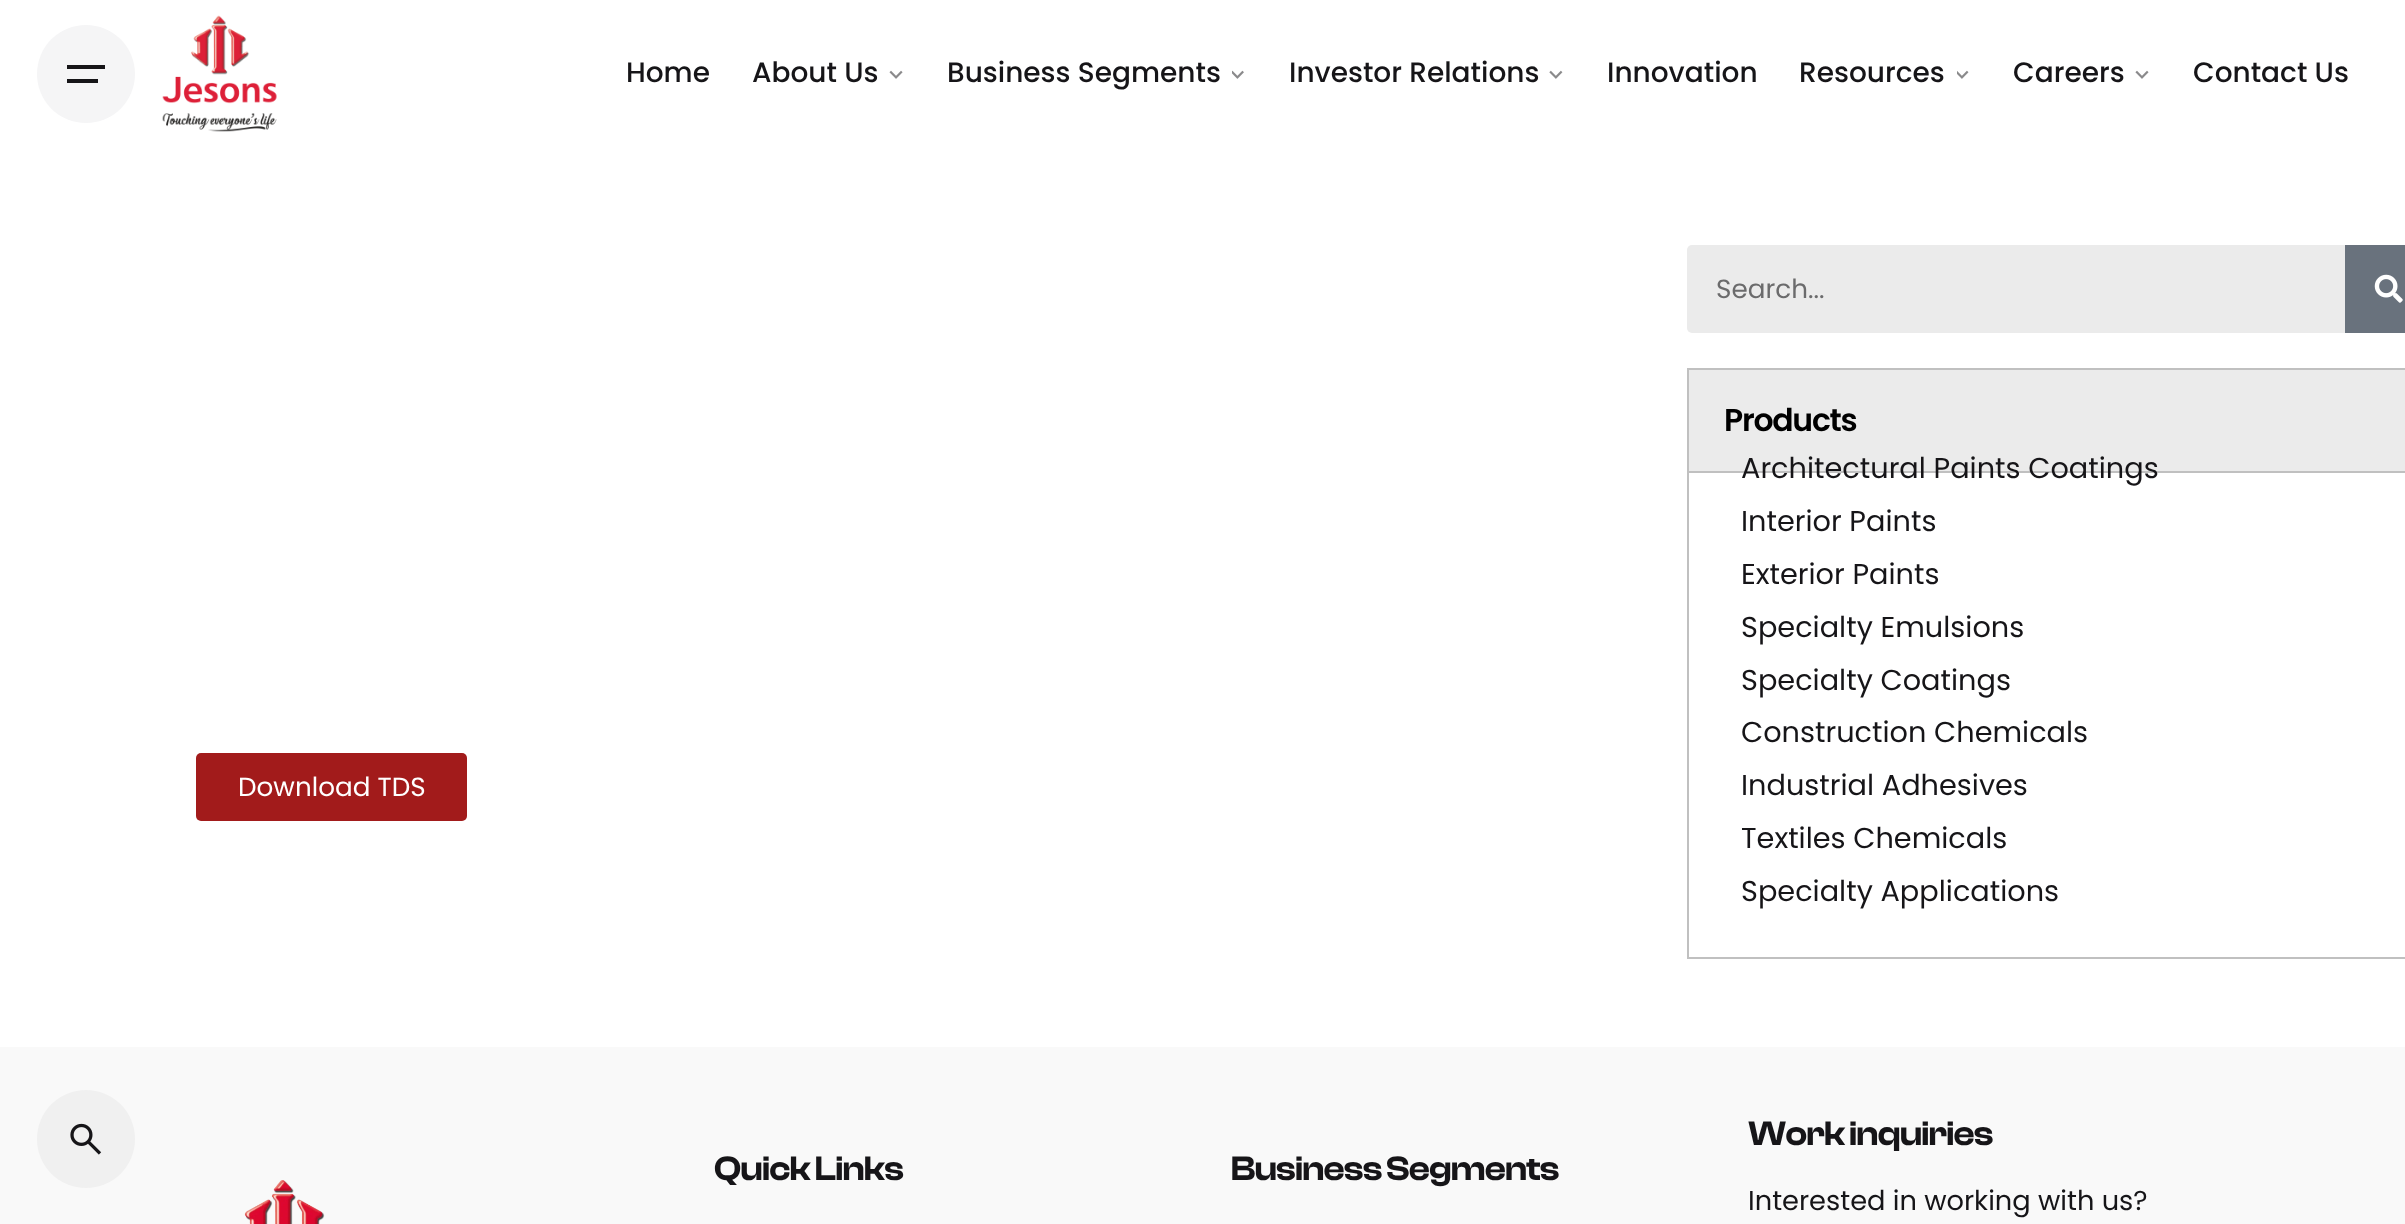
async function draw(canvas) {
  canvas.width = 2405;
  canvas.height = 1224;
  const ctx = canvas.getContext('2d');
  ctx.miterLimit = 4;
  ctx.fontKerning = 'normal';
  function label(s, x, y, font, color) {
    ctx.font = font;
    ctx.fillStyle = color;
    ctx.fillText(s, x, y);
  }
  function rect(x, y, w, h, color) {
    ctx.fillStyle = color;
    ctx.fillRect(x, y, w, h);
  }
  function roundedRect(x, y, w, h, r, color) {
    ctx.fillStyle = color;
    ctx.beginPath();
    ctx.roundRect(x, y, w, h, r);
    ctx.fill();
  }
  async function image(src, x, y, w, h) {
    const img = new Image();
    img.src = src;
    await img.decode();
    ctx.drawImage(img, x, y, w, h);
  }

  rect(0, 0, 2405, 1224, '#fff');
  ctx.fillStyle = '#f5f5f6';
  ctx.beginPath();
  ctx.arc(86, 74, 49, 0, 2 * Math.PI);
  ctx.fill();
  rect(67, 65, 38, 4, '#161518');
  rect(67, 79, 31, 4, '#161518');
  await image('assets/img1.png', 162, 15, 115, 117);
  label('Home', 626, 82, '500 28px Poppins', '#161518');
  label('About Us', 752, 82, '500 28px Poppins', '#161518');
  await image('assets/img2.png', 889, 70, 14, 9);
  label('Business Segments', 947, 82, '500 28px Poppins', '#161518');
  await image('assets/img3.png', 1232, 70, 12, 9);
  label('Investor Relations', 1289, 82, '500 28px Poppins', '#161518');
  await image('assets/img4.png', 1549, 70, 14, 9);
  label('Innovation', 1607, 82, '500 28px Poppins', '#161518');
  label('Resources', 1799, 82, '500 28px Poppins', '#161518');
  await image('assets/img5.png', 1957, 70, 12, 9);
  label('Careers', 2013, 82, '500 28px Poppins', '#161518');
  await image('assets/img6.png', 2135, 70, 14, 9);
  label('Contact Us', 2193, 82, '500 28px Poppins', '#161518');
  roundedRect(196, 753, 271, 68, 5, '#a21b1b');
  label('Download TDS', 238, 796, '26.25px Poppins', '#fff');
  roundedRect(1687, 245, 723, 88, 5, '#ebebeb');
  label('Search...', 1716, 298, '26.25px Poppins', '#6b6b6c');
  rect(2345, 245, 60, 88, '#69727d');
  await image('assets/img7.png', 2374, 274, 29, 29);
  ctx.fillStyle = '#ebebeb';
  ctx.beginPath();
  ctx.rect(1688, 369, 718, 103);
  ctx.fill();
  ctx.strokeStyle = '#c0c0c0';
  ctx.lineWidth = 2;
  ctx.stroke();
  ctx.letterSpacing = '-1.25px';
  label('Products', 1724, 431, '600 31.5px Poppins', '#000');
  rect(1687, 957, 718, 2, '#c0c0c0');
  rect(1687, 473, 2, 486, '#c0c0c0');
  ctx.letterSpacing = '0px';
  label('Architectural Paints Coatings', 1741, 478, '28.75px Poppins', '#161518');
  label('Interior Paints', 1741, 531, '28.75px Poppins', '#161518');
  label('Exterior Paints', 1741, 584, '28.75px Poppins', '#161518');
  label('Specialty Emulsions', 1741, 637, '28.75px Poppins', '#161518');
  label('Specialty Coatings', 1741, 690, '28.75px Poppins', '#161518');
  label('Construction Chemicals', 1741, 742, '28.75px Poppins', '#161518');
  label('Industrial Adhesives', 1741, 795, '28.75px Poppins', '#161518');
  label('Textiles Chemicals', 1741, 848, '28.75px Poppins', '#161518');
  label('Specialty Applications', 1741, 901, '28.75px Poppins', '#161518');
  rect(0, 1047, 2405, 177, '#f9f9f9');
  ctx.fillStyle = '#f0f0f0';
  ctx.beginPath();
  ctx.arc(86, 1139, 49, 0, 2 * Math.PI);
  ctx.fill();
  await image('assets/img8.png', 70, 1123, 32, 32);
  ctx.letterSpacing = '-0.75px';
  label('Quick Links', 714, 1180, '600 35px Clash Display', '#161518');
  label('Business Segments', 1231, 1180, '600 35px Clash Display', '#161518');
  label('Work inquiries', 1748, 1145, '600 35px Clash Display', '#161518');
  ctx.letterSpacing = '0px';
  label('Interested in working with us?', 1748, 1210, '27.25px Poppins', '#161518');
  await image('assets/img9.png', 244, 1180, 81, 44);
}

draw(document.querySelector('canvas'));
